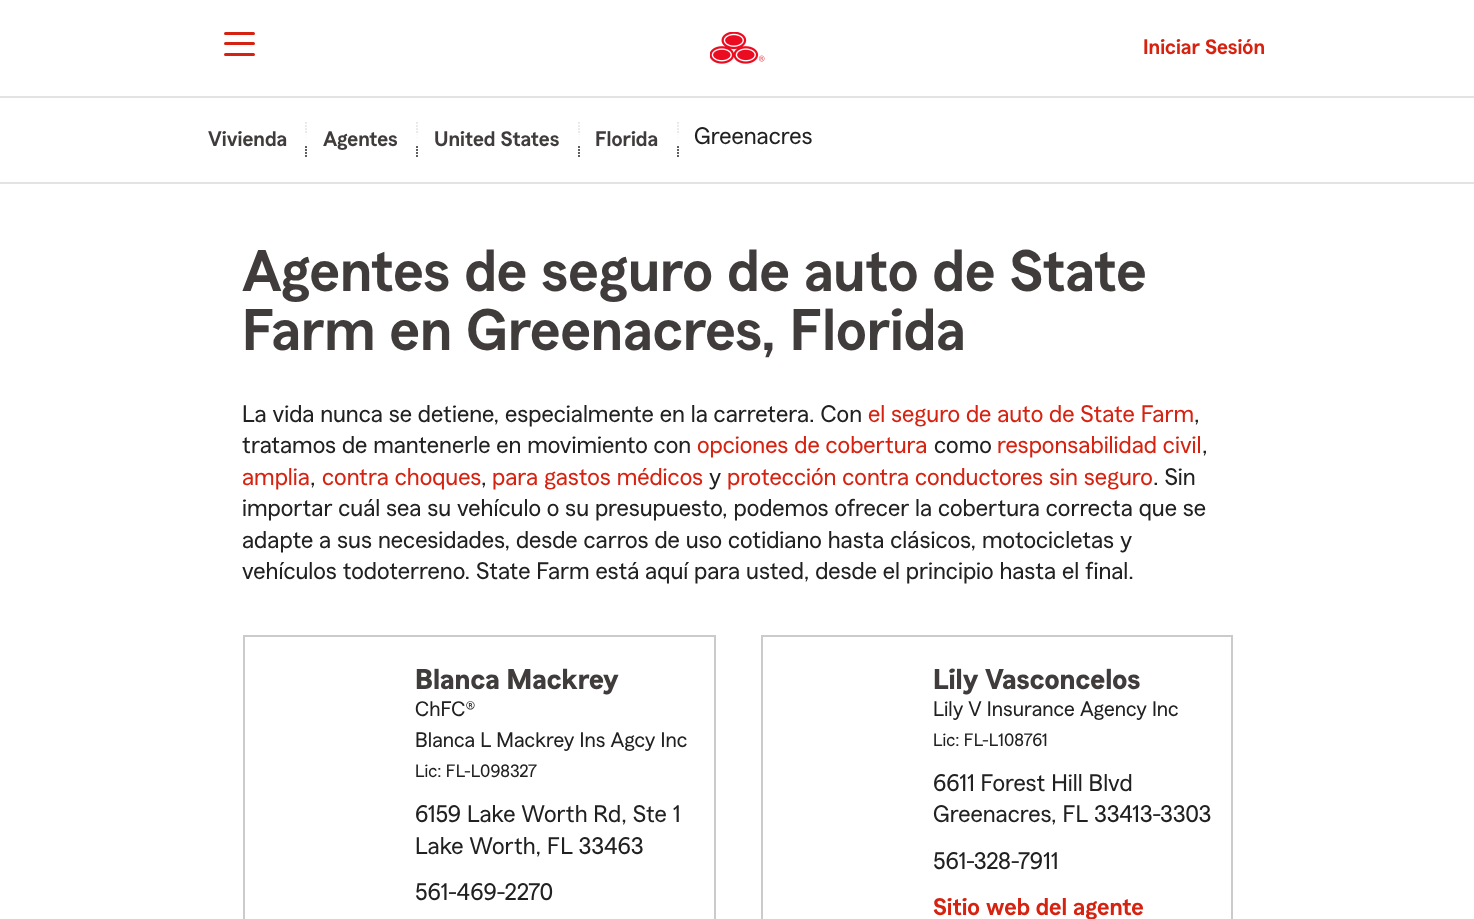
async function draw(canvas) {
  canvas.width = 1474;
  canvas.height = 919;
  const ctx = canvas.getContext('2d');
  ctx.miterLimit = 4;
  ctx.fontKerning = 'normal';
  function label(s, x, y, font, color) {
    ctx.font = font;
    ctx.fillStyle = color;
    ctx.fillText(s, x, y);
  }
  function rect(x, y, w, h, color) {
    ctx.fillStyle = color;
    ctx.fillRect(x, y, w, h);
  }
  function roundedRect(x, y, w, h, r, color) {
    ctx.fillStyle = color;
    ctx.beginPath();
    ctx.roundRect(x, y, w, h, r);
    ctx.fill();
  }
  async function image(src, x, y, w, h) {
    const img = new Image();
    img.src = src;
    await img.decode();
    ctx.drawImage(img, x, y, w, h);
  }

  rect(0, 0, 1474, 919, '#fff');
  rect(0, 96, 1474, 2, '#e4e3e3');
  roundedRect(224, 32, 31, 3, 1.5, '#d62311');
  roundedRect(224, 42, 31, 3, 1.5, '#d62311');
  roundedRect(224, 53, 31, 3, 1.5, '#d62311');
  await image('assets/img1.png', 710, 32, 55, 32);
  label('Iniciar Sesión', 1143, 54, '600 21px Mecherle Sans', '#d62311');
  rect(0, 182, 1474, 2, '#e4e3e3');
  label('Vivienda', 208, 146, '600 21px Mecherle Sans', '#403c3c');
  await image('assets/img2.png', 305, 122, 2, 35);
  label('Agentes', 323, 146, '600 21px Mecherle Sans', '#403c3c');
  await image('assets/img2.png', 416, 122, 2, 35);
  label('United States', 434, 146, '600 21px Mecherle Sans', '#403c3c');
  await image('assets/img2.png', 578, 122, 2, 35);
  label('Florida', 595, 146, '600 21px Mecherle Sans', '#403c3c');
  await image('assets/img2.png', 677, 122, 2, 35);
  label('Greenacres', 694, 144, '24px Mecherle Sans', '#212121');
  label('Agentes de seguro de auto de State', 242, 291, '600 58.5px Mecherle Sans', '#403c3c');
  label('Farm en Greenacres, Florida', 242, 350, '600 58.5px Mecherle Sans', '#403c3c');
  label('La vida nunca se detiene, especialmente en la carretera. Con', 242, 422, '24px Mecherle Sans', '#212121');
  label('el seguro de auto de State Farm', 868, 422, '24px Mecherle Sans', '#d62311');
  label(',', 1194, 422, '24px Mecherle Sans', '#212121');
  label('tratamos de mantenerle en movimiento con', 242, 453, '24px Mecherle Sans', '#212121');
  label('opciones de cobertura', 697, 453, '24px Mecherle Sans', '#d62311');
  label('como', 934, 453, '24px Mecherle Sans', '#212121');
  label('responsabilidad civil', 997, 453, '24px Mecherle Sans', '#d62311');
  label(',', 1202, 453, '24px Mecherle Sans', '#212121');
  label('amplia', 242, 485, '24px Mecherle Sans', '#d62311');
  label(',', 310, 485, '24px Mecherle Sans', '#212121');
  label('contra choques', 322, 485, '24px Mecherle Sans', '#d62311');
  label(',', 481, 485, '24px Mecherle Sans', '#212121');
  label('para gastos médicos', 492, 485, '24px Mecherle Sans', '#d62311');
  label('y', 709, 485, '24px Mecherle Sans', '#212121');
  label('protección contra conductores sin seguro', 727, 485, '24px Mecherle Sans', '#d62311');
  label('. Sin', 1153, 485, '24px Mecherle Sans', '#212121');
  label('importar cuál sea su vehículo o su presupuesto, podemos ofrecer la cobertura correcta que se', 242, 516, '24px Mecherle Sans', '#212121');
  label('adapte a sus necesidades, desde carros de uso cotidiano hasta clásicos, motocicletas y', 242, 548, '24px Mecherle Sans', '#212121');
  label('vehículos todoterreno. State Farm está aquí para usted, desde el principio hasta el final.', 242, 579, '24px Mecherle Sans', '#212121');
  ctx.strokeStyle = '#cbcbcb';
  ctx.lineWidth = 2;
  ctx.strokeRect(244, 636, 471, 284);
  label('Blanca Mackrey', 415, 689, 'bold 28.5px Mecherle Sans', '#403c3c');
  label('ChFC®', 415, 716, '21px Mecherle Sans', '#212121');
  label('Blanca L Mackrey Ins Agcy Inc', 415, 747, '21px Mecherle Sans', '#212121');
  label('Lic: FL-L098327', 415, 777, '18px Mecherle Sans', '#212121');
  label('6159 Lake Worth Rd, Ste 1', 415, 822, '24px Mecherle Sans', '#212121');
  label('Lake Worth, FL 33463', 415, 854, '24px Mecherle Sans', '#212121');
  label('561-469-2270', 415, 900, '24px Mecherle Sans', '#212121');
  ctx.strokeRect(762, 636, 470, 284);
  label('Lily Vasconcelos', 933, 689, 'bold 28.5px Mecherle Sans', '#403c3c');
  label('Lily V Insurance Agency Inc', 933, 716, '21px Mecherle Sans', '#212121');
  label('Lic: FL-L108761', 933, 746, '18px Mecherle Sans', '#212121');
  label('6611 Forest Hill Blvd', 933, 791, '24px Mecherle Sans', '#212121');
  label('Greenacres, FL 33413-3303', 933, 822, '24px Mecherle Sans', '#212121');
  label('561-328-7911', 933, 869, '24px Mecherle Sans', '#212121');
  label('Sitio web del agente', 933, 915, '600 24px Mecherle Sans', '#d62311');
}

draw(document.querySelector('canvas'));
